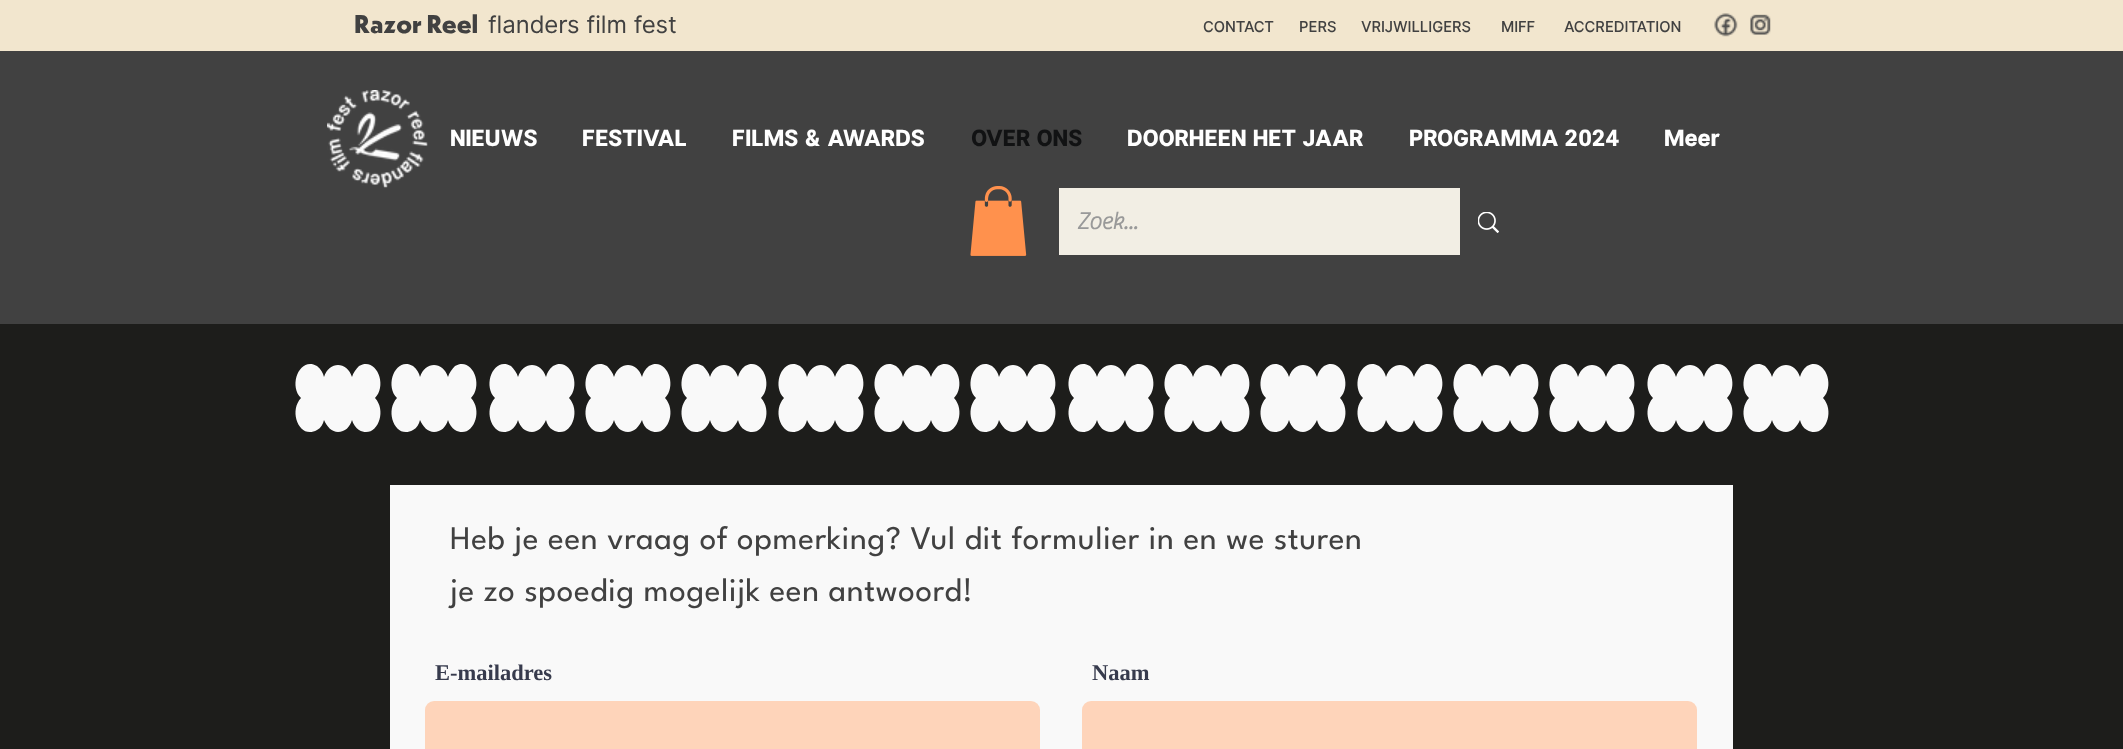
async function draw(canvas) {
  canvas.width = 2123;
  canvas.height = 749;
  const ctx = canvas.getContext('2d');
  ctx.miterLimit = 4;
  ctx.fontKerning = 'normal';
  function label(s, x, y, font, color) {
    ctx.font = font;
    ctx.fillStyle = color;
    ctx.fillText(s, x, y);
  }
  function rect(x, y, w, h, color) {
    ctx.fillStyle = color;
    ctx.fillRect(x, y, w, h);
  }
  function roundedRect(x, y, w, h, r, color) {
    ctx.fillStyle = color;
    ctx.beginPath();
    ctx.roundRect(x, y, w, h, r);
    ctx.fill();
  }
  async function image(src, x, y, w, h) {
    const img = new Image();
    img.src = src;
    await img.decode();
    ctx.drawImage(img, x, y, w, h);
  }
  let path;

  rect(0, 0, 2123, 749, '#1d1d1b');
  rect(0, 0, 2123, 51, '#f2e6ce');
  label('Razor Reel', 354, 33, '800 24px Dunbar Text', '#414141');
  label('flanders film fest', 488, 33, '24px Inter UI', '#414141');
  label('CONTACT', 1203, 32, '500 15px Inter UI', '#414141');
  label('PERS', 1299, 32, '500 15px Inter UI', '#414141');
  label('VRIJWILLIGERS', 1361, 32, '500 15px Inter UI', '#414141');
  label('MIFF', 1501, 32, '500 15px Inter UI', '#414141');
  label('ACCREDITATION', 1564, 32, '500 15px Inter UI', '#414141');
  await image('assets/img1.png', 1714, 13, 24, 24);
  await image('assets/img2.png', 1750, 14, 21, 21);
  rect(0, 51, 2123, 273, '#414141');
  await image('assets/img3.png', 327, 90, 101, 98);
  label('NIEUWS', 450, 146, '900 22.5px Inter UI', '#fff');
  label('FESTIVAL', 582, 146, '900 22.5px Inter UI', '#fff');
  label('FILMS & AWARDS', 732, 146, '900 22.5px Inter UI', '#fff');
  label('OVER ONS', 971, 146, '900 22.5px Inter UI', '#111213');
  label('DOORHEEN HET JAAR', 1127, 146, '900 22.5px Inter UI', '#fff');
  label('PROGRAMMA 2024', 1409, 146, '900 22.5px Inter UI', '#fff');
  label('Meer', 1664, 146, '900 22.5px Inter UI', '#fff');
  await image('assets/img4.png', 970, 186, 57, 70);
  rect(1059, 188, 401, 67, '#f2eee4');
  label('Zoek...', 1077, 229, 'bold 24px "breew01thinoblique"', '#999');
  await image('assets/img5.png', 1478, 212, 21, 21);
  ctx.fillStyle = '#f9f9f9';
  path = new Path2D('M338 432C345 432 350 427 352 420C353 424 356 428 359 430C376 440 388 412 375 398C388 385 376 356 359 366C356 369 353 373 352 377C347 361 329 361 324 377C323 373 321 369 317 366C300 356 288 385 301 398C288 412 300 440 317 430C321 428 323 424 324 420C327 427 332 432 338 432Z');
  ctx.fill(path);
  path = new Path2D('M434 432C441 432 446 427 448 420C449 424 452 428 455 430C472 440 484 412 471 398C484 385 472 356 455 366C452 369 449 373 448 377C443 361 425 361 420 377C419 373 417 369 413 366C396 356 384 385 397 398C384 412 396 440 413 430C417 428 419 424 420 420C423 427 428 432 434 432Z');
  ctx.fill(path);
  path = new Path2D('M532 432C538 432 543 427 546 420C547 424 549 428 553 430C570 440 582 412 569 398C582 385 570 356 553 366C549 369 547 373 546 377C541 361 523 361 518 377C517 373 514 369 511 366C494 356 482 385 495 398C482 412 494 440 511 430C514 428 517 424 518 420C520 427 525 432 532 432Z');
  ctx.fill(path);
  path = new Path2D('M628 432C634 432 639 427 642 420C643 424 645 428 649 430C666 440 678 412 665 398C678 385 666 356 649 366C645 369 643 373 642 377C637 361 619 361 614 377C613 373 610 369 607 366C590 356 578 385 591 398C578 412 590 440 607 430C610 428 613 424 614 420C616 427 621 432 628 432Z');
  ctx.fill(path);
  path = new Path2D('M724 432C730 432 735 427 738 420C739 424 741 428 745 430C762 440 774 412 761 398C774 385 762 356 745 366C741 369 739 373 738 377C733 361 715 361 710 377C709 373 706 369 703 366C686 356 674 385 687 398C674 412 686 440 703 430C706 428 709 424 710 420C712 427 717 432 724 432Z');
  ctx.fill(path);
  path = new Path2D('M821 432C828 432 833 427 835 420C836 424 839 428 842 430C859 440 871 412 858 398C871 385 859 356 842 366C839 369 836 373 835 377C830 361 812 361 807 377C806 373 804 369 800 366C783 356 771 385 784 398C771 412 783 440 800 430C804 428 806 424 807 420C810 427 815 432 821 432Z');
  ctx.fill(path);
  path = new Path2D('M917 432C924 432 929 427 931 420C932 424 935 428 938 430C955 440 967 412 954 398C967 385 955 356 938 366C935 369 932 373 931 377C926 361 908 361 903 377C902 373 900 369 896 366C879 356 867 385 880 398C867 412 879 440 896 430C900 428 902 424 903 420C906 427 911 432 917 432Z');
  ctx.fill(path);
  path = new Path2D('M1013 432C1020 432 1025 427 1027 420C1028 424 1031 428 1034 430C1051 440 1063 412 1050 398C1063 385 1051 356 1034 366C1031 369 1028 373 1027 377C1022 361 1004 361 999 377C998 373 996 369 992 366C975 356 963 385 976 398C963 412 975 440 992 430C996 428 998 424 999 420C1002 427 1007 432 1013 432Z');
  ctx.fill(path);
  path = new Path2D('M1111 432C1117 432 1122 427 1125 420C1126 424 1128 428 1132 430C1149 440 1161 412 1148 398C1161 385 1149 356 1132 366C1128 369 1126 373 1125 377C1120 361 1102 361 1097 377C1096 373 1093 369 1090 366C1073 356 1061 385 1074 398C1061 412 1073 440 1090 430C1093 428 1096 424 1097 420C1099 427 1104 432 1111 432Z');
  ctx.fill(path);
  path = new Path2D('M1207 432C1213 432 1218 427 1221 420C1222 424 1224 428 1228 430C1245 440 1257 412 1244 398C1257 385 1245 356 1228 366C1224 369 1222 373 1221 377C1216 361 1198 361 1193 377C1192 373 1189 369 1186 366C1169 356 1157 385 1170 398C1157 412 1169 440 1186 430C1189 428 1192 424 1193 420C1195 427 1200 432 1207 432Z');
  ctx.fill(path);
  path = new Path2D('M1303 432C1309 432 1314 427 1317 420C1318 424 1320 428 1324 430C1341 440 1353 412 1340 398C1353 385 1341 356 1324 366C1320 369 1318 373 1317 377C1312 361 1294 361 1289 377C1288 373 1285 369 1282 366C1265 356 1253 385 1266 398C1253 412 1265 440 1282 430C1285 428 1288 424 1289 420C1291 427 1296 432 1303 432Z');
  ctx.fill(path);
  path = new Path2D('M1400 432C1407 432 1412 427 1414 420C1415 424 1418 428 1421 430C1438 440 1450 412 1437 398C1450 385 1438 356 1421 366C1418 369 1415 373 1414 377C1409 361 1391 361 1386 377C1385 373 1383 369 1379 366C1362 356 1350 385 1363 398C1350 412 1362 440 1379 430C1383 428 1385 424 1386 420C1389 427 1394 432 1400 432Z');
  ctx.fill(path);
  path = new Path2D('M1496 432C1503 432 1508 427 1510 420C1511 424 1514 428 1517 430C1534 440 1546 412 1533 398C1546 385 1534 356 1517 366C1514 369 1511 373 1510 377C1505 361 1487 361 1482 377C1481 373 1479 369 1475 366C1458 356 1446 385 1459 398C1446 412 1458 440 1475 430C1479 428 1481 424 1482 420C1485 427 1490 432 1496 432Z');
  ctx.fill(path);
  path = new Path2D('M1592 432C1599 432 1604 427 1606 420C1607 424 1610 428 1613 430C1630 440 1642 412 1629 398C1642 385 1630 356 1613 366C1610 369 1607 373 1606 377C1601 361 1583 361 1578 377C1577 373 1575 369 1571 366C1554 356 1542 385 1555 398C1542 412 1554 440 1571 430C1575 428 1577 424 1578 420C1581 427 1586 432 1592 432Z');
  ctx.fill(path);
  path = new Path2D('M1690 432C1696 432 1701 427 1704 420C1705 424 1707 428 1711 430C1728 440 1740 412 1727 398C1740 385 1728 356 1711 366C1707 369 1705 373 1704 377C1699 361 1681 361 1676 377C1675 373 1672 369 1669 366C1652 356 1640 385 1653 398C1640 412 1652 440 1669 430C1672 428 1675 424 1676 420C1678 427 1683 432 1690 432Z');
  ctx.fill(path);
  path = new Path2D('M1786 432C1792 432 1797 427 1800 420C1801 424 1803 428 1807 430C1824 440 1836 412 1823 398C1836 385 1824 356 1807 366C1803 369 1801 373 1800 377C1795 361 1777 361 1772 377C1771 373 1768 369 1765 366C1748 356 1736 385 1749 398C1736 412 1748 440 1765 430C1768 428 1771 424 1772 420C1774 427 1779 432 1786 432Z');
  ctx.fill(path);
  rect(390, 485, 1343, 264, '#f9f9f9');
  ctx.letterSpacing = '0.65px';
  label('Heb je een vraag of opmerking? Vul dit formulier in en we sturen', 450, 549, '33px League Spartan', '#414141');
  label('je zo spoedig mogelijk een antwoord!', 450, 601, '33px League Spartan', '#414141');
  ctx.letterSpacing = '0px';
  label('E-mailadres', 435, 680, 'bold 22.5px Liberation Serif', '#373b4d');
  roundedRect(425, 701, 615, 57, 9, '#fed4ba');
  label('Naam', 1092, 680, 'bold 22.5px Liberation Serif', '#373b4d');
  roundedRect(1082, 701, 615, 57, 9, '#fed4ba');
}

draw(document.querySelector('canvas'));
